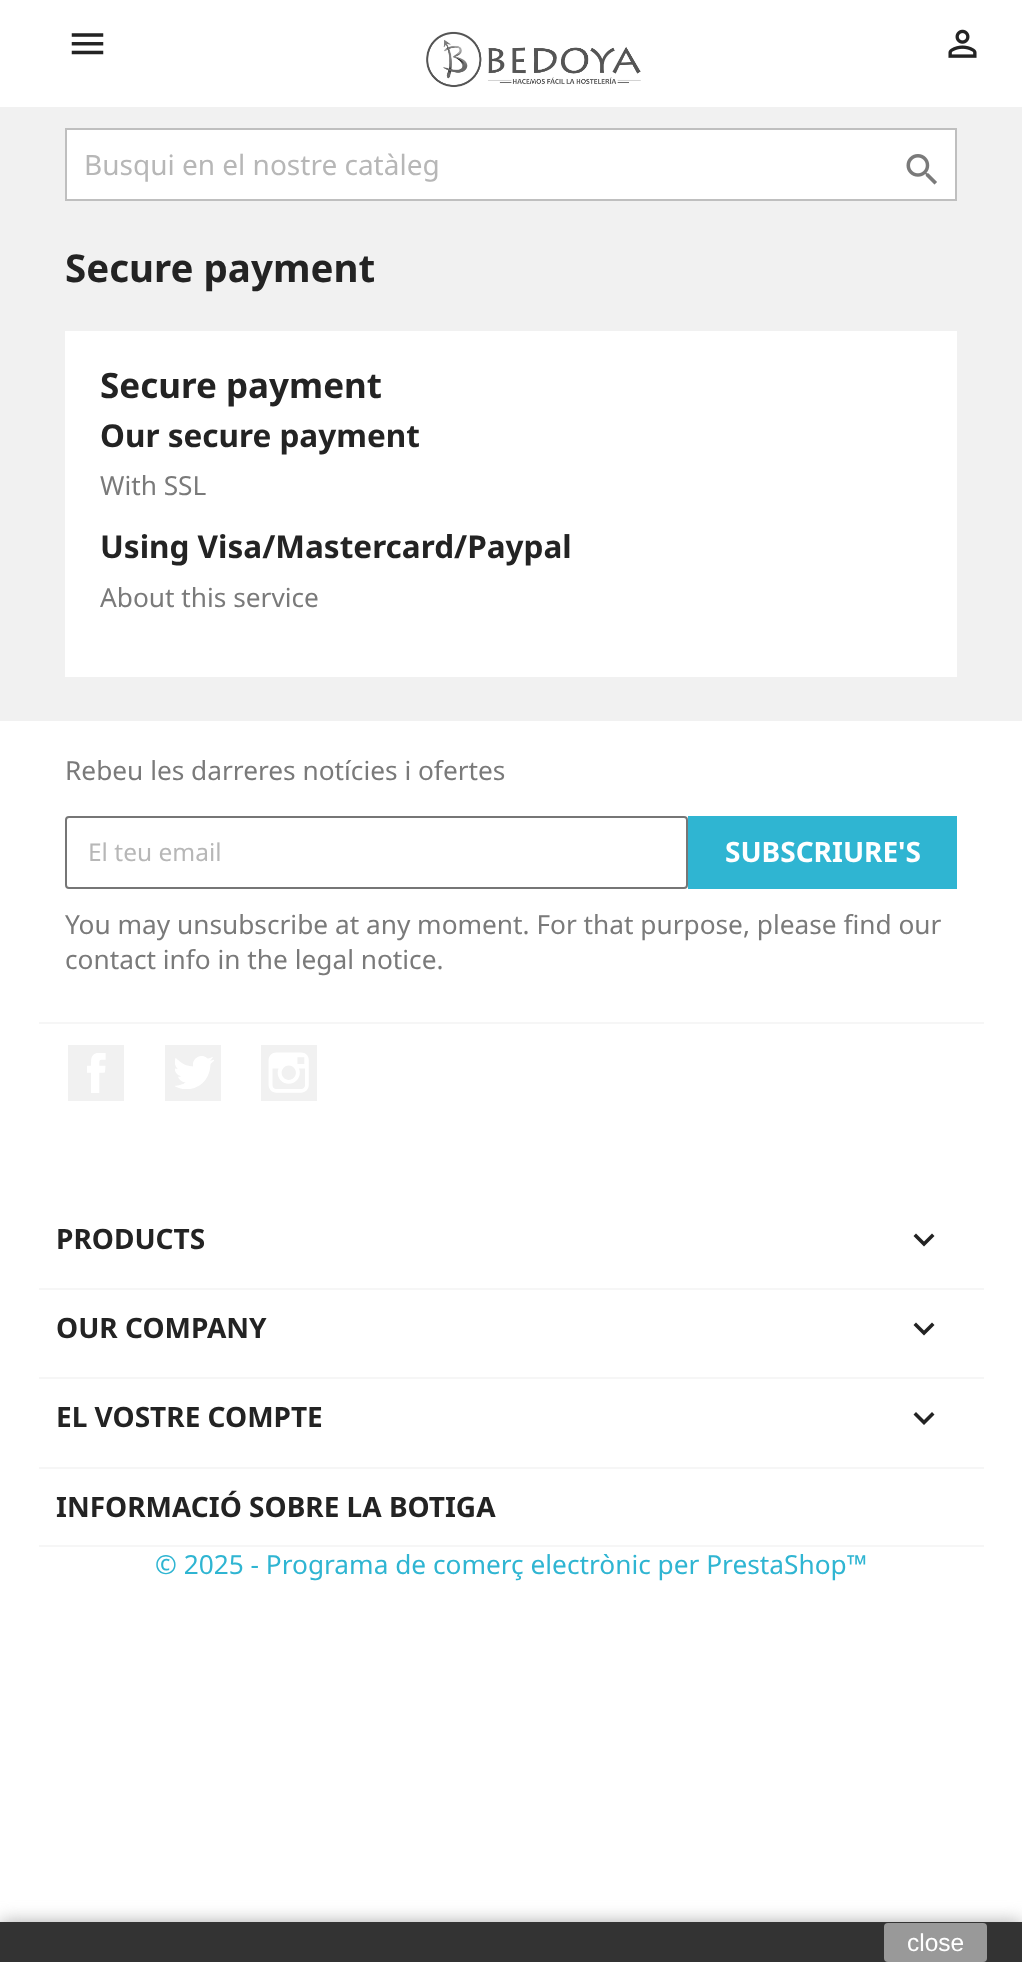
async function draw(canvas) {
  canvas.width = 1022;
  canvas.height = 1962;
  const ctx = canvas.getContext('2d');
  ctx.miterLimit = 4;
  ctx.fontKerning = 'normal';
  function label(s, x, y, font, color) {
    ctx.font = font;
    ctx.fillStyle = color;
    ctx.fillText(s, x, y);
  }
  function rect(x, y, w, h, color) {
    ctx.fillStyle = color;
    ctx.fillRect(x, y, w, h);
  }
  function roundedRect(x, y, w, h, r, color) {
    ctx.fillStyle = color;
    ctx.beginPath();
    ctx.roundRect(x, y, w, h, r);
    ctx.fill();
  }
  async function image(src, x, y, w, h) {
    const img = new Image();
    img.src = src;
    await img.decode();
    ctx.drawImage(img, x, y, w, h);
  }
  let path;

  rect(0, 0, 1022, 1962, '#fff');
  rect(0, 107, 1022, 614, '#f1f1f1');
  await image('assets/img1.png', 71, 33, 33, 22);
  await image('assets/img2.png', 426, 31, 215, 57);
  await image('assets/img3.png', 948, 29, 29, 29);
  ctx.fillStyle = '#fff';
  ctx.beginPath();
  ctx.rect(66, 129, 890, 71);
  ctx.fill();
  ctx.strokeStyle = '#bfbfbf';
  ctx.lineWidth = 2;
  ctx.stroke();
  label('Busqui en el nostre catàleg', 84, 175, '28px Noto Sans', '#b7b7b7');
  await image('assets/img4.png', 906, 154, 31, 31);
  label('Secure payment', 65, 282, 'bold 38.5px Noto Sans', '#232323');
  rect(65, 331, 892, 346, '#fff');
  label('Secure payment', 100, 398, 'bold 35px Noto Sans', '#232323');
  label('Our secure payment', 100, 447, 'bold 31.5px Noto Sans', '#232323');
  label('With SSL', 100, 495, '26.25px Noto Sans', '#7a7a7a');
  label('Using Visa/Mastercard/Paypal', 100, 558, 'bold 31.5px Noto Sans', '#232323');
  label('About this service', 100, 607, '26.25px Noto Sans', '#7a7a7a');
  rect(39, 1022, 945, 2, '#f6f6f6');
  label('Rebeu les darreres notícies i ofertes', 65, 780, '26.25px Noto Sans', '#7a7a7a');
  ctx.beginPath();
  ctx.roundRect(66, 817, 621, 71, 3);
  ctx.strokeStyle = '#767676';
  ctx.stroke();
  label('El teu email', 88, 861, '24.5px Noto Sans', '#b7b7b7');
  rect(688, 816, 269, 73, '#2fb5d2');
  label('SUBSCRIURE\'S', 725, 862, 'bold 28px Noto Sans', '#fff');
  label('You may unsubscribe at any moment. For that purpose, please find our', 65, 934, '26.25px Noto Sans', '#7a7a7a');
  label('contact info in the legal notice.', 65, 969, '26.25px Noto Sans', '#7a7a7a');
  rect(68, 1045, 56, 56, '#f1f1f1');
  await image('assets/img5.png', 87, 1053, 19, 40);
  rect(165, 1045, 56, 56, '#f1f1f1');
  await image('assets/img6.png', 175, 1056, 39, 33);
  rect(261, 1045, 56, 56, '#f1f1f1');
  await image('assets/img7.png', 268, 1052, 41, 41);
  rect(39, 1288, 945, 2, '#f6f6f6');
  label('PRODUCTS', 56, 1249, 'bold 28px Noto Sans', '#232323');
  path = new Path2D('M916 1233.5L924 1241.5L932 1233.5L934.5 1236L924 1246.5L913.5 1236Z');
  ctx.fill(path);
  rect(39, 1377, 945, 2, '#f6f6f6');
  label('OUR COMPANY', 56, 1338, 'bold 28px Noto Sans', '#232323');
  path = new Path2D('M916 1322.5L924 1330.5L932 1322.5L934.5 1325L924 1335.5L913.5 1325Z');
  ctx.fill(path);
  rect(39, 1467, 945, 2, '#f6f6f6');
  label('EL VOSTRE COMPTE', 56, 1427, 'bold 28px Noto Sans', '#232323');
  path = new Path2D('M916 1412L924 1420L932 1412L934.5 1414.5L924 1425L913.5 1414.5Z');
  ctx.fill(path);
  rect(39, 1545, 945, 2, '#f6f6f6');
  label('INFORMACIÓ SOBRE LA BOTIGA', 56, 1517, 'bold 28px Noto Sans', '#232323');
  ctx.fillStyle = '#ababab';
  ctx.filter = 'blur(9px)';
  ctx.beginPath();
  ctx.rect(0, 1922, 1022, 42);
  ctx.fill();
  ctx.filter = 'none';
  rect(0, 1922, 1022, 40, '#333');
  roundedRect(884, 1923, 103, 39, 4, '#999');
  label('close', 907, 1951, '24.5px Liberation Sans', '#fff');
  label('© 2025 - Programa de comerç electrònic per PrestaShop™', 155, 1574, '26.25px Noto Sans', '#2fb5d2');
}

draw(document.querySelector('canvas'));
